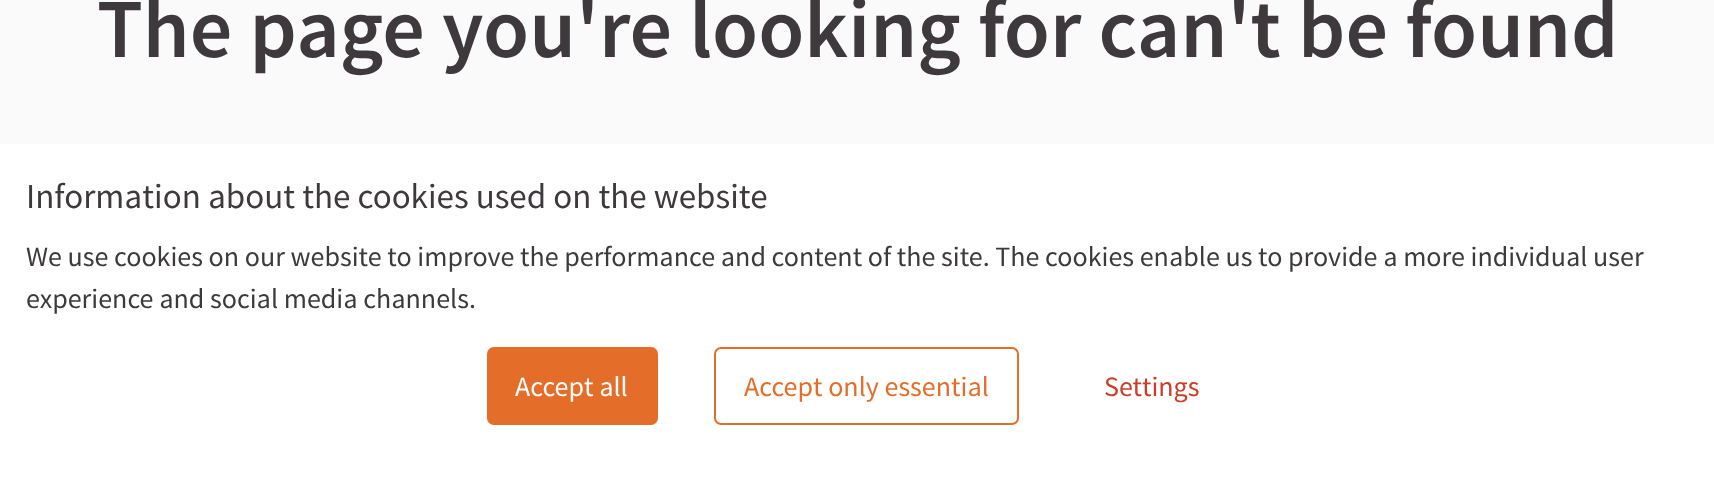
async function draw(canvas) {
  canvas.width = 1714;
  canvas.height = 481;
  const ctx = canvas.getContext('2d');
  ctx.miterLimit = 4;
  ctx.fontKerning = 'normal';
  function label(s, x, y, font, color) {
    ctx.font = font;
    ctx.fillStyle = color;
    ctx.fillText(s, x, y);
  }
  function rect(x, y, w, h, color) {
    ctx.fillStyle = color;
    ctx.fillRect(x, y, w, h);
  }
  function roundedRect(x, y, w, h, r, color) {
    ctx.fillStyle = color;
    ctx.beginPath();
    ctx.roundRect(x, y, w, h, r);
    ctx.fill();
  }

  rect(0, 0, 1714, 481, '#fafafa');
  label('The page you\'re looking for can\'t be found', 97, 57, '600 84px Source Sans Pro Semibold', '#3d393c');
  rect(0, 144, 1714, 337, '#fff');
  label('Information about the cookies used on the website', 26, 208, '35px Source Sans Pro', '#3d393c');
  label('We use cookies on our website to improve the performance and content of the site. The cookies enable us to provide a more individual user', 26, 266, '28px Source Sans Pro', '#3d393c');
  label('experience and social media channels.', 26, 308, '28px Source Sans Pro', '#3d393c');
  roundedRect(487, 347, 171, 78, 7, '#e46e29');
  label('Accept all', 515, 396, '28px Source Sans Pro', '#fff');
  ctx.beginPath();
  ctx.roundRect(715, 348, 303, 76, 6);
  ctx.strokeStyle = '#e46e29';
  ctx.lineWidth = 2;
  ctx.stroke();
  label('Accept only essential', 744, 396, '28px Source Sans Pro', '#e46e29');
  label('Settings', 1104, 396, '28px Source Sans Pro', '#cb3c29');
}

draw(document.querySelector('canvas'));
